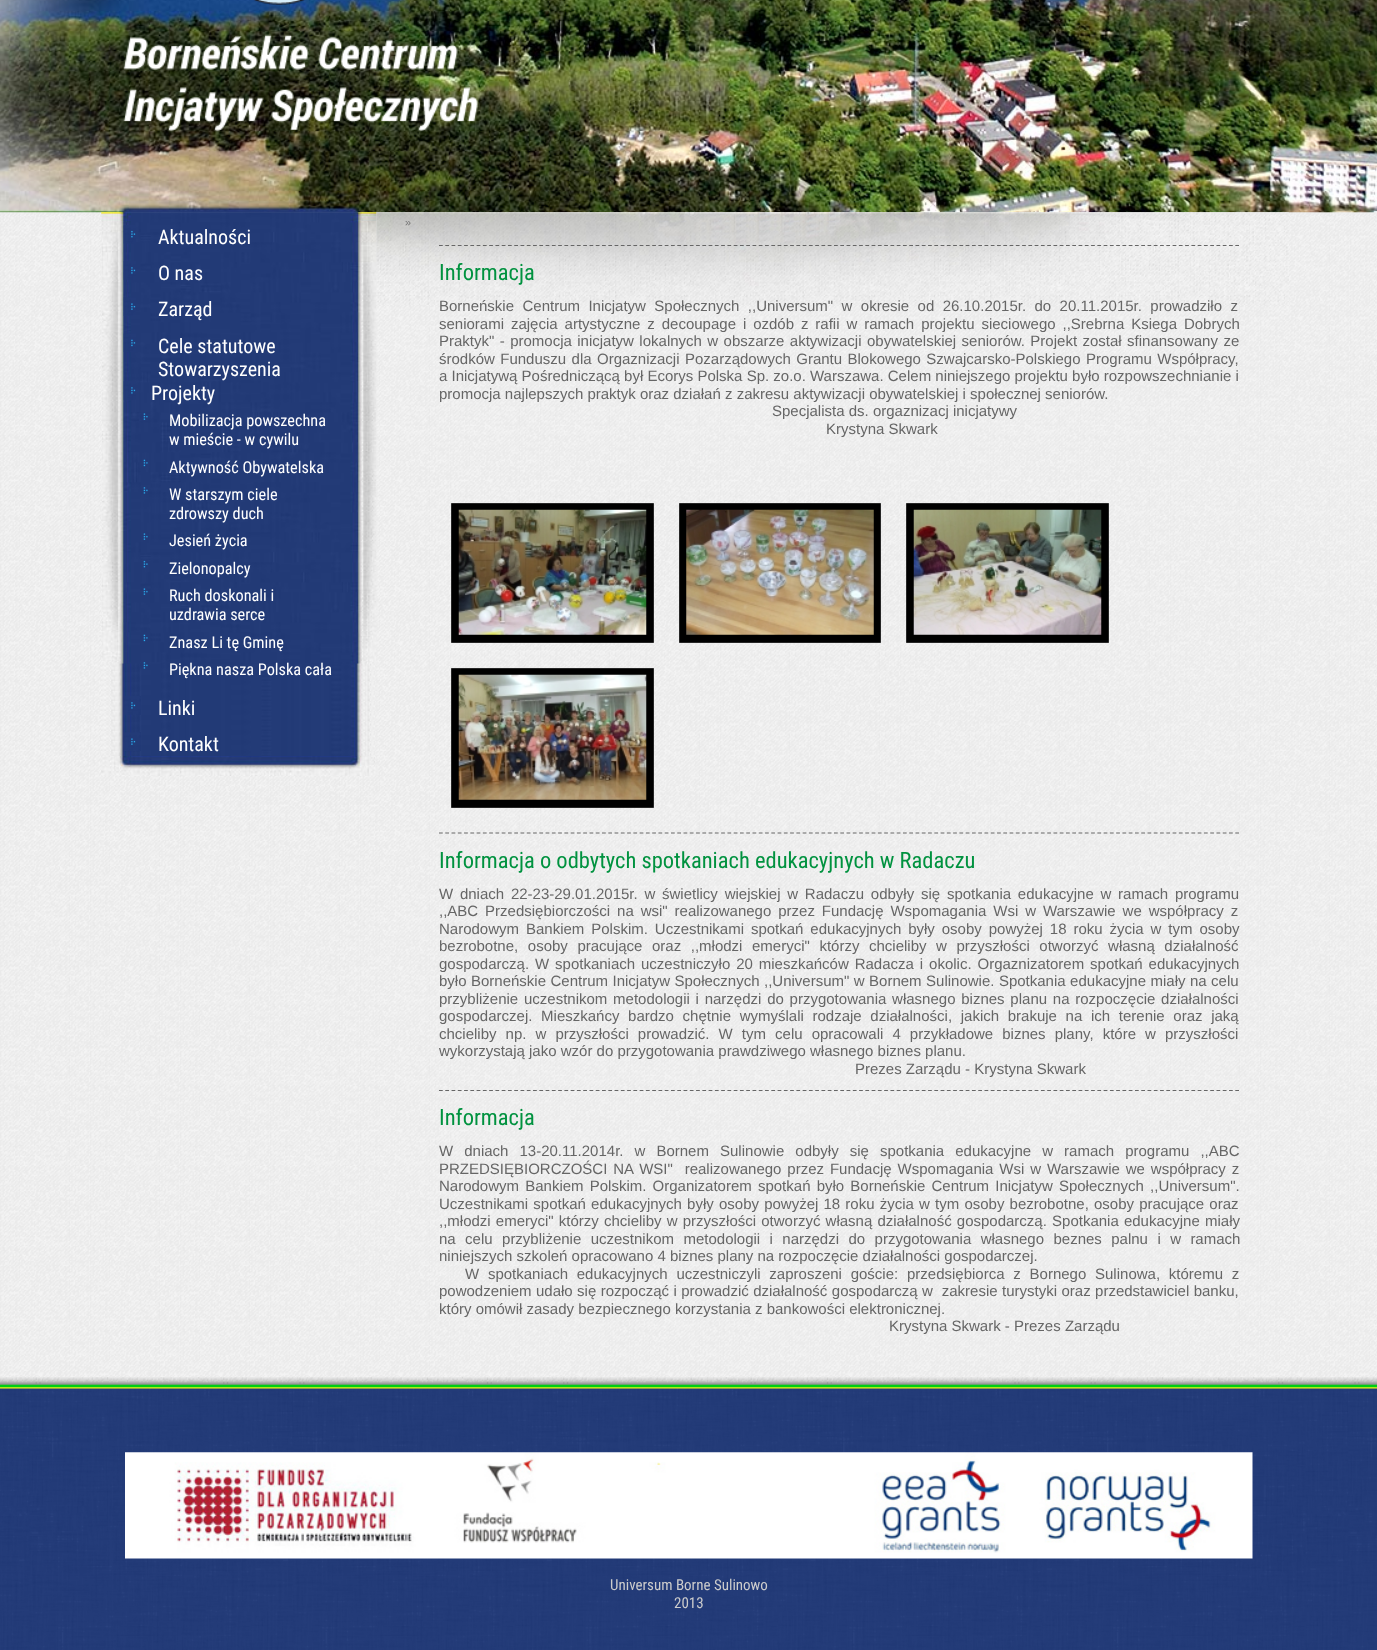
async function draw(canvas) {
  canvas.width = 1377;
  canvas.height = 1650;
  const ctx = canvas.getContext('2d');
  ctx.miterLimit = 4;
  ctx.fontKerning = 'normal';
  function label(s, x, y, font, color) {
    ctx.font = font;
    ctx.fillStyle = color;
    ctx.fillText(s, x, y);
  }
  function rect(x, y, w, h, color) {
    ctx.fillStyle = color;
    ctx.fillRect(x, y, w, h);
  }
  async function image(src, x, y, w, h) {
    const img = new Image();
    img.src = src;
    await img.decode();
    ctx.drawImage(img, x, y, w, h);
  }
  let path;

  rect(0, 0, 1377, 1650, '#fff');
  await image('assets/img1.png', 0, 212, 1377, 1166);
  await image('assets/img2.png', 0, 0, 1377, 213);
  await image('assets/img3.png', 123, 0, 356, 133);
  await image('assets/img4.png', 248, 212, 1041, 93);
  await image('assets/img5.png', 101, 212, 276, 564);
  await image('assets/img6.png', 101, 212, 276, 452);
  await image('assets/img7.png', 123, 225, 13, 19);
  label('Aktualności', 158, 244, '20px Roboto Condensed', '#fff');
  await image('assets/img8.png', 123, 261, 13, 19);
  label('O nas', 158, 280, '20px Roboto Condensed', '#fff');
  await image('assets/img9.png', 123, 297, 13, 19);
  label('Zarząd', 158, 316, '20px Roboto Condensed', '#fff');
  await image('assets/img10.png', 123, 333, 13, 19);
  label('Cele statutowe', 158, 353, '20px Roboto Condensed', '#fff');
  label('Stowarzyszenia', 158, 376, '20px Roboto Condensed', '#fff');
  await image('assets/img11.png', 123, 381, 13, 19);
  label('Projekty', 151, 400, '20px Roboto Condensed', '#fff');
  await image('assets/img12.png', 139, 413, 9, 8);
  label('Mobilizacja powszechna', 169, 426, '16.25px Roboto Condensed', '#fff');
  label('w mieście - w cywilu', 169, 445, '16.25px Roboto Condensed', '#fff');
  await image('assets/img13.png', 143, 459, 5, 8);
  label('Aktywność Obywatelska', 169, 473, '16.25px Roboto Condensed', '#fff');
  await image('assets/img14.png', 143, 487, 5, 7);
  label('W starszym ciele', 169, 500, '16.25px Roboto Condensed', '#fff');
  label('zdrowszy duch', 169, 519, '16.25px Roboto Condensed', '#fff');
  await image('assets/img15.png', 143, 533, 5, 7);
  label('Jesień życia', 169, 546, '16.25px Roboto Condensed', '#fff');
  await image('assets/img16.png', 143, 560, 5, 8);
  label('Zielonopalcy', 169, 574, '16.25px Roboto Condensed', '#fff');
  await image('assets/img15.png', 143, 588, 5, 7);
  label('Ruch doskonali i', 169, 601, '16.25px Roboto Condensed', '#fff');
  label('uzdrawia serce', 169, 620, '16.25px Roboto Condensed', '#fff');
  await image('assets/img13.png', 143, 634, 5, 8);
  label('Znasz Li tę Gminę', 169, 648, '16.25px Roboto Condensed', '#fff');
  await image('assets/img17.png', 140, 662, 8, 7);
  label('Piękna nasza Polska cała', 169, 675, '16.25px Roboto Condensed', '#fff');
  await image('assets/img18.png', 124, 696, 17, 19);
  label('Linki', 158, 715, '20px Roboto Condensed', '#fff');
  await image('assets/img19.png', 124, 732, 17, 19);
  label('Kontakt', 158, 751, '20px Roboto Condensed', '#fff');
  await image('assets/img20.png', 101, 756, 275, 20);
  label('»', 405, 226, '11px Liberation Sans', '#777');
  path = new Path2D('M439 245.5H1239');
  ctx.strokeStyle = '#666';
  ctx.lineWidth = 1.2;
  ctx.setLineDash([3.75, 2.52]);
  ctx.stroke(path);
  label('Informacja', 439, 280, '22.5px Roboto Condensed', '#00923f');
  ctx.wordSpacing = '4.25px';
  label('Borneńskie Centrum Inicjatyw Społecznych ,,Universum" w okresie od 26.10.2015r. do 20.11.2015r. prowadziło z', 439, 311, '15px Liberation Sans', '#666');
  ctx.wordSpacing = '2.75px';
  label('seniorami zajęcia artystyczne z decoupage i ozdób z rafii w ramach projektu sieciowego ,,Srebrna Ksiega Dobrych', 439, 329, '15px Liberation Sans', '#666');
  ctx.wordSpacing = '1.25px';
  label('Praktyk" - promocja inicjatyw lokalnych w obszarze aktywizacji obywatelskiej seniorów. Projekt został sfinansowany ze', 439, 346, '15px Liberation Sans', '#666');
  label('środków Funduszu dla Orgaznizacji Pozarządowych Grantu Blokowego Szwajcarsko-Polskiego Programu Współpracy,', 439, 364, '15px Liberation Sans', '#666');
  ctx.wordSpacing = '0px';
  label('a Inicjatywą Pośredniczącą był Ecorys Polska Sp. zo.o. Warszawa. Celem niniejszego projektu było rozpowszechnianie i', 439, 381, '15px Liberation Sans', '#666');
  label('promocja najlepszych praktyk oraz działań z zakresu aktywizacji obywatelskiej i społecznej seniorów.', 439, 399, '15px Liberation Sans', '#666');
  label('Specjalista ds. orgaznizacj inicjatywy', 772, 416, '15px Liberation Sans', '#666');
  label('Krystyna Skwark', 826, 434, '15px Liberation Sans', '#666');
  ctx.fillStyle = '#000';
  ctx.beginPath();
  ctx.rect(451.5, 503.5, 202, 139);
  ctx.fill();
  ctx.strokeStyle = '#272727';
  ctx.lineWidth = 1;
  ctx.setLineDash([]);
  ctx.stroke();
  await image('assets/img21.png', 458, 509, 189, 126);
  ctx.beginPath();
  ctx.rect(679.5, 503.5, 201, 139);
  ctx.fill();
  ctx.stroke();
  await image('assets/img22.png', 686, 509, 188, 126);
  ctx.beginPath();
  ctx.rect(906.5, 503.5, 202, 139);
  ctx.fill();
  ctx.stroke();
  await image('assets/img23.png', 913, 509, 189, 126);
  ctx.beginPath();
  ctx.rect(451.5, 668.5, 202, 139);
  ctx.fill();
  ctx.stroke();
  await image('assets/img24.png', 458, 674, 189, 126);
  path = new Path2D('M439 833H1239');
  ctx.strokeStyle = '#666';
  ctx.lineWidth = 1.2;
  ctx.setLineDash([3.75, 2.52]);
  ctx.stroke(path);
  label('Informacja o odbytych spotkaniach edukacyjnych w Radaczu', 439, 868, '22.5px Roboto Condensed', '#00923f');
  ctx.wordSpacing = '2.6px';
  label('W dniach 22-23-29.01.2015r. w świetlicy wiejskiej w Radaczu odbyły się spotkania edukacyjne w ramach programu', 439, 899, '15px Liberation Sans', '#666');
  ctx.wordSpacing = '2.75px';
  label(',,ABC Przedsiębiorczości na wsi" realizowanego przez Fundację Wspomagania Wsi w Warszawie we współpracy z', 439, 916, '15px Liberation Sans', '#666');
  label('Narodowym Bankiem Polskim. Uczestnikami spotkań edukacyjnych były osoby powyżej 18 roku życia w tym osoby', 439, 934, '15px Liberation Sans', '#666');
  ctx.wordSpacing = '5.4px';
  label('bezrobotne, osoby pracujące oraz ,,młodzi emeryci" którzy chcieliby w przyszłości otworzyć własną działalność', 439, 951, '15px Liberation Sans', '#666');
  ctx.wordSpacing = '1.75px';
  label('gospodarczą. W spotkaniach uczestniczyło 20 mieszkańców Radacza i okolic. Orgaznizatorem spotkań edukacyjnych', 439, 969, '15px Liberation Sans', '#666');
  ctx.wordSpacing = '0.3px';
  label('było Borneńskie Centrum Inicjatyw Społecznych ,,Universum" w Bornem Sulinowie. Spotkania edukacyjne miały na celu', 439, 986, '15px Liberation Sans', '#666');
  ctx.wordSpacing = '1.6px';
  label('przybliżenie uczestnikom metodologii i narzędzi do przygotowania własnego biznes planu na rozpoczęcie działalności', 439, 1004, '15px Liberation Sans', '#666');
  ctx.wordSpacing = '4.5px';
  label('gospodarczej. Mieszkańcy bardzo chętnie wymyślali rodzaje działalności, jakich brakuje na ich terenie oraz jaką', 439, 1021, '15px Liberation Sans', '#666');
  ctx.wordSpacing = '4.9px';
  label('chcieliby np. w przyszłości prowadzić. W tym celu opracowali 4 przykładowe biznes plany, które w przyszłości', 439, 1039, '15px Liberation Sans', '#666');
  ctx.wordSpacing = '0px';
  label('wykorzystają jako wzór do przygotowania prawdziwego własnego biznes planu.', 439, 1056, '15px Liberation Sans', '#666');
  label('Prezes Zarządu - Krystyna Skwark', 855, 1074, '15px Liberation Sans', '#666');
  path = new Path2D('M439 1090.5H1239');
  ctx.stroke(path);
  label('Informacja', 439, 1125, '22.5px Roboto Condensed', '#00923f');
  ctx.wordSpacing = '6.9px';
  label('W dniach 13-20.11.2014r. w Bornem Sulinowie odbyły się spotkania edukacyjne w ramach programu ,,ABC', 439, 1156, '15px Liberation Sans', '#666');
  ctx.wordSpacing = '1.75px';
  label('PRZEDSIĘBIORCZOŚCI NA WSI"  realizowanego przez Fundację Wspomagania Wsi w Warszawie we współpracy z', 439, 1174, '15px Liberation Sans', '#666');
  ctx.wordSpacing = '2px';
  label('Narodowym Bankiem Polskim. Organizatorem spotkań było Borneńskie Centrum Inicjatyw Społecznych ,,Universum".', 439, 1191, '15px Liberation Sans', '#666');
  ctx.wordSpacing = '1px';
  label('Uczestnikami spotkań edukacyjnych były osoby powyżej 18 roku życia w tym osoby bezrobotne, osoby pracujące oraz', 439, 1209, '15px Liberation Sans', '#666');
  label(',,młodzi emeryci" którzy chcieliby w przyszłości otworzyć własną działalność gospodarczą. Spotkania edukacyjne miały', 439, 1226, '15px Liberation Sans', '#666');
  ctx.wordSpacing = '5.25px';
  label('na celu przybliżenie uczestnikom metodologii i narzędzi do przygotowania własnego beznes palnu i w ramach', 439, 1244, '15px Liberation Sans', '#666');
  ctx.wordSpacing = '0px';
  label('niniejszych szkoleń opracowano 4 biznes plany na rozpoczęcie działalności gospodarczej.', 439, 1261, '15px Liberation Sans', '#666');
  ctx.wordSpacing = '4.6px';
  label('W spotkaniach edukacyjnych uczestniczyli zaproszeni goście: przedsiębiorca z Bornego Sulinowa, któremu z', 465, 1279, '15px Liberation Sans', '#666');
  ctx.wordSpacing = '0.25px';
  label('powodzeniem udało się rozpocząć i prowadzić działalność gospodarczą w  zakresie turystyki oraz przedstawiciel banku,', 439, 1296, '15px Liberation Sans', '#666');
  ctx.wordSpacing = '0px';
  label('który omówił zasady bezpiecznego korzystania z bankowości elektronicznej.', 439, 1314, '15px Liberation Sans', '#666');
  label('Krystyna Skwark - Prezes Zarządu', 889, 1331, '15px Liberation Sans', '#666');
  await image('assets/img25.png', 0, 1377, 1377, 273);
  await image('assets/img26.png', 125, 1452, 1128, 107);
  label('Universum Borne Sulinowo', 610, 1590, '15px Roboto Condensed', '#ccc');
  label('2013', 674, 1608, '15px Roboto Condensed', '#ccc');
}

draw(document.querySelector('canvas'));
